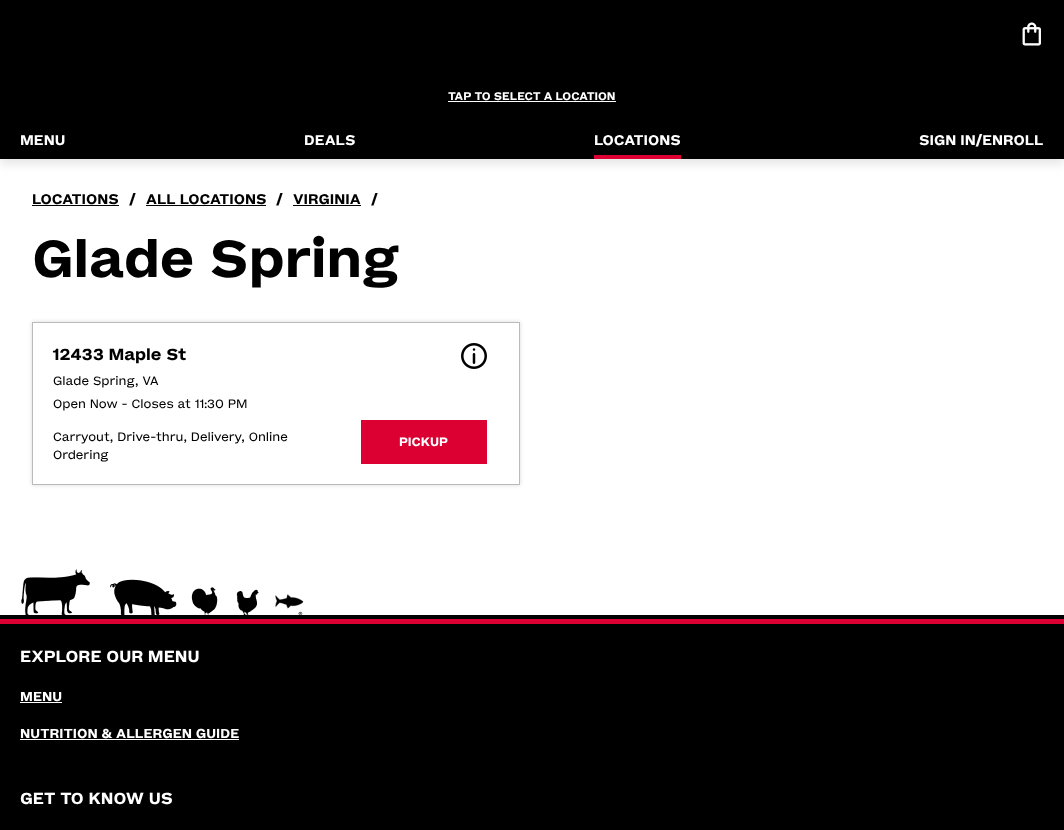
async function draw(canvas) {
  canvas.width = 1064;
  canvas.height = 830;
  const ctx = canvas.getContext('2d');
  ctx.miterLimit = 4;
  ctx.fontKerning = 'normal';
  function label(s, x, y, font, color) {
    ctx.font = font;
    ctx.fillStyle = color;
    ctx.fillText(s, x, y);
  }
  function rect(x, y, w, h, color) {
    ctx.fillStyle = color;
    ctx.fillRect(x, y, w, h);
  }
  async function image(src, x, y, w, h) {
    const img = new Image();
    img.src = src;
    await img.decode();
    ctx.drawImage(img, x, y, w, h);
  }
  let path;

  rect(0, 0, 1064, 830, '#fff');
  ctx.fillStyle = '#0000001a';
  ctx.filter = 'blur(5px)';
  ctx.beginPath();
  ctx.rect(0, 5, 1064, 159);
  ctx.fill();
  ctx.filter = 'none';
  rect(0, 0, 1064, 159, '#000');
  await image('assets/img1.png', 1022, 22, 19, 24);
  label('TAP TO SELECT A LOCATION', 448, 100, 'bold 11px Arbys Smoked', '#fff');
  rect(448, 101, 168, 1, '#fff');
  label('MENU', 20, 145, 'bold 14px Arbys Smoked', '#fff');
  label('DEALS', 304, 145, 'bold 14px Arbys Smoked', '#fff');
  rect(594, 155, 87, 4, '#dc0032');
  label('LOCATIONS', 594, 145, 'bold 14px Arbys Smoked', '#fff');
  label('SIGN IN/ENROLL', 919, 145, 'bold 14px Arbys Smoked', '#fff');
  label('LOCATIONS', 32, 204, 'bold 14px Arbys Smoked', '#000');
  rect(32, 205, 87, 1, '#000');
  label('/', 129, 204, 'bold 14px Arbys Smoked', '#000');
  label('ALL LOCATIONS', 146, 204, 'bold 14px Arbys Smoked', '#000');
  rect(146, 205, 120, 1, '#000');
  label('/', 276, 204, 'bold 14px Arbys Smoked', '#000');
  label('VIRGINIA', 293, 204, 'bold 14px Arbys Smoked', '#000');
  rect(293, 205, 68, 1, '#000');
  label('/', 371, 204, 'bold 14px Arbys Smoked', '#000');
  label('Glade Spring', 32, 277, 'bold 52px Arbys Smoked', '#000');
  ctx.save();
  path = new Path2D('M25 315H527V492H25ZM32 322H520V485H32Z');
  ctx.clip(path, 'evenodd');
  ctx.fillStyle = '#00000026';
  ctx.filter = 'blur(2px)';
  ctx.beginPath();
  ctx.rect(32, 322, 488, 163);
  ctx.fill();
  ctx.filter = 'none';
  ctx.restore();
  ctx.strokeStyle = '#bababa';
  ctx.strokeRect(32.5, 322.5, 487, 162);
  label('12433 Maple St', 53, 360, 'bold 16px Arbys Smoked', '#000');
  label('Glade Spring, VA', 53, 385, '12px Arbys Smoked', '#000');
  label('Open Now - Closes at 11:30 PM', 53, 408, '12px Arbys Smoked', '#000');
  label('Carryout, Drive-thru, Delivery, Online', 53, 441, '12px Arbys Smoked', '#000');
  label('Ordering', 53, 459, '12px Arbys Smoked', '#000');
  await image('assets/img2.png', 461, 343, 26, 26);
  rect(361, 420, 126, 44, '#dc0032');
  label('PICKUP', 399, 446, 'bold 12px Arbys Smoked', '#fff');
  rect(0, 615, 1064, 215, '#000');
  await image('assets/img3.png', 21, 569, 69, 46);
  await image('assets/img4.png', 110, 579, 67, 36);
  await image('assets/img5.png', 191, 587, 27, 28);
  await image('assets/img6.png', 236, 589, 23, 26);
  await image('assets/img7.png', 275, 594, 29, 21);
  rect(0, 619, 1064, 5, '#dc0032');
  label('EXPLORE OUR MENU', 20, 662, 'bold 16px Arbys Smoked', '#fff');
  label('MENU', 20, 701, 'bold 13px Arbys Smoked', '#fff');
  rect(20, 702, 42, 1, '#fff');
  label('NUTRITION & ALLERGEN GUIDE', 20, 738, 'bold 13px Arbys Smoked', '#fff');
  rect(20, 739, 219, 1, '#fff');
  label('GET TO KNOW US', 20, 804, 'bold 16px Arbys Smoked', '#fff');
}

draw(document.querySelector('canvas'));
